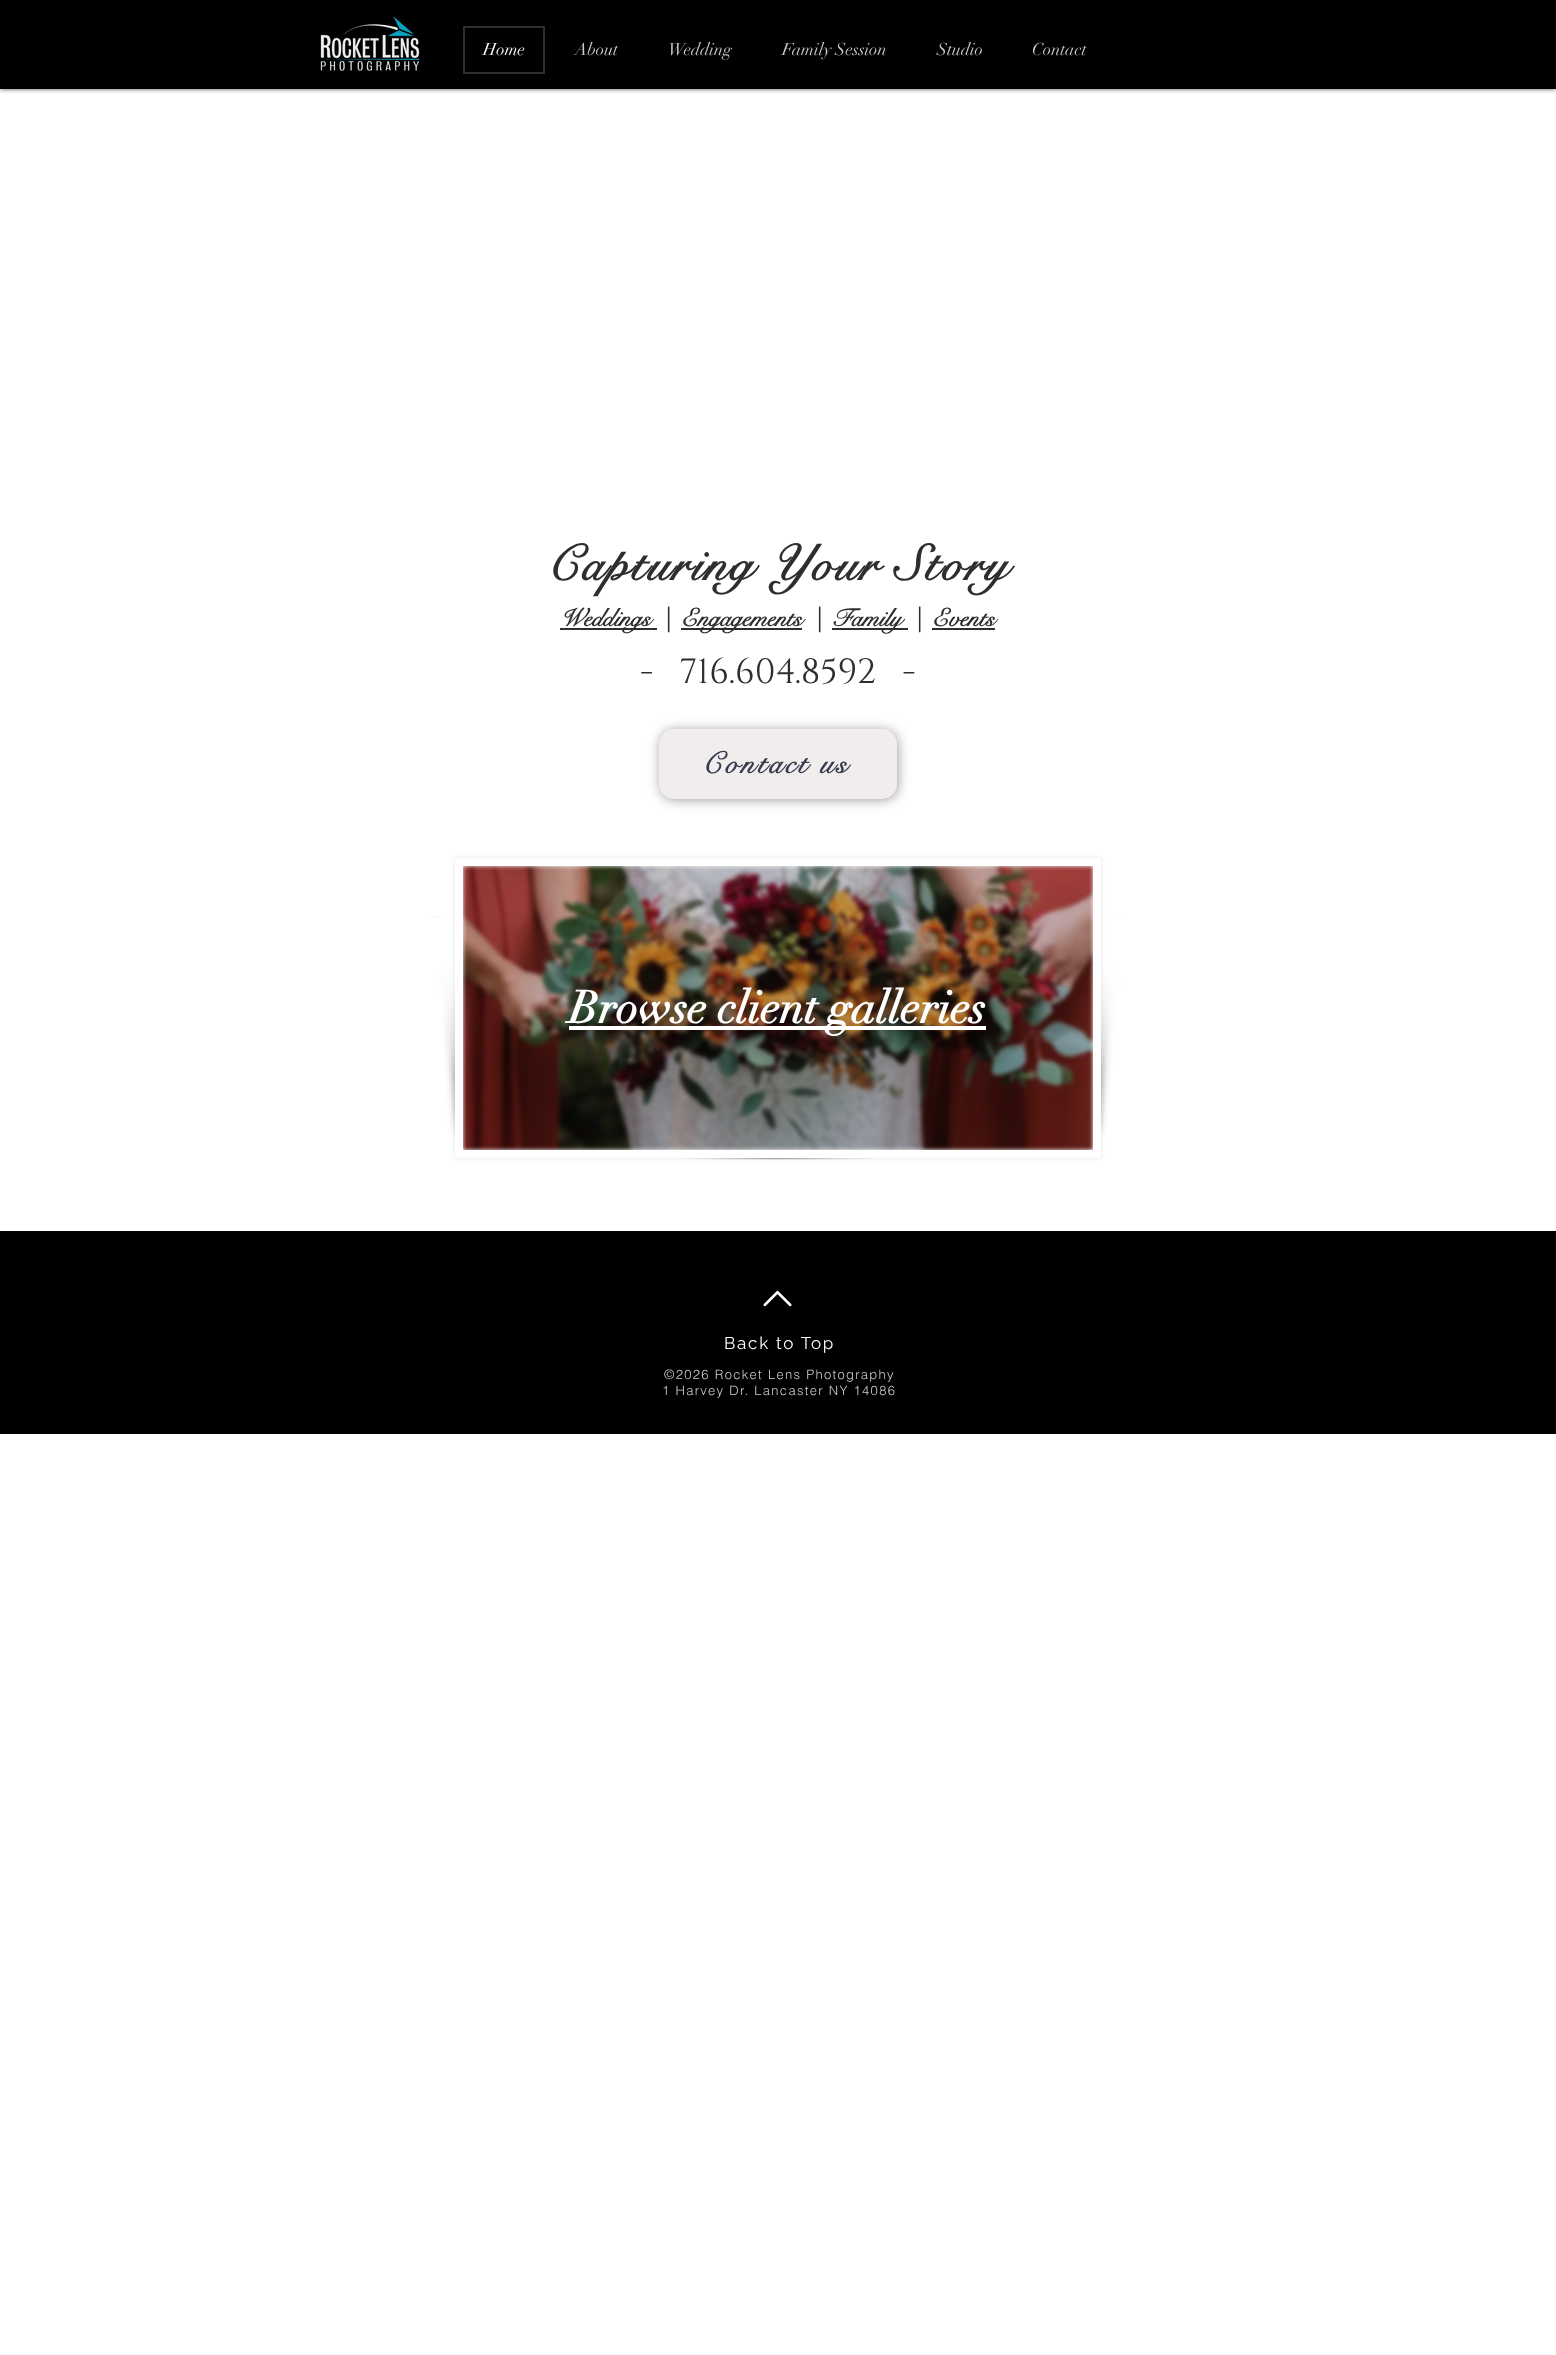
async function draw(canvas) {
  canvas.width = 1556;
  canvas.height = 2355;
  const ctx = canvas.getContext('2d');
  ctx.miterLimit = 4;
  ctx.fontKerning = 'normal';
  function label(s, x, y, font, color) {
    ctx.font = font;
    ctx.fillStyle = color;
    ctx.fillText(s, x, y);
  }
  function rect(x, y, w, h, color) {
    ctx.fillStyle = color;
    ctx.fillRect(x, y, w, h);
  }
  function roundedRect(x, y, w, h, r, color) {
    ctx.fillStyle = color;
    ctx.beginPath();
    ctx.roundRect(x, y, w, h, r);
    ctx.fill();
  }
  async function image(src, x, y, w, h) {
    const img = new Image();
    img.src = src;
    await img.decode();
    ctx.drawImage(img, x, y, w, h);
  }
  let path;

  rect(0, 0, 1556, 2355, '#fff');
  ctx.fillStyle = '#000000b3';
  ctx.filter = 'blur(2.5px)';
  ctx.beginPath();
  ctx.rect(0, 0, 1556, 89);
  ctx.fill();
  ctx.filter = 'none';
  rect(0, 0, 1556, 89, '#000');
  await image('assets/img1.png', 320, 16, 100, 55);
  ctx.strokeStyle = '#2f2e2e';
  ctx.lineWidth = 2;
  ctx.strokeRect(464, 27, 80, 46);
  label('Home', 483, 55, '17px didot', '#fff');
  label('About', 575, 55, '17px didot', '#ccc');
  label('Wedding', 668, 55, '17px didot', '#ccc');
  label('Family Session', 782, 55, '17px didot', '#ccc');
  label('Studio', 937, 55, '17px didot', '#ccc');
  label('Contact', 1032, 55, '17px didot', '#ccc');
  ctx.letterSpacing = '2.5px';
  label('Capturing Your Story', 546, 580, 'bold 50px "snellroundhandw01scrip"', '#2f2e2e');
  rect(560, 628, 97, 2, '#2f2e2e');
  ctx.letterSpacing = '0px';
  label('Weddings', 560, 626, 'bold 25px "snellroundhandw01scrip"', '#2f2e2e');
  label('|', 663, 626, 'bold 25px "snellroundhandw01scrip"', '#2f2e2e');
  rect(681, 628, 121, 2, '#2f2e2e');
  label('Engagements', 681, 626, 'bold 25px "snellroundhandw01scrip"', '#2f2e2e');
  label('|', 814, 626, 'bold 25px "snellroundhandw01scrip"', '#2f2e2e');
  rect(832, 628, 76, 2, '#2f2e2e');
  label('Family', 832, 626, 'bold 25px "snellroundhandw01scrip"', '#2f2e2e');
  label('|', 914, 626, 'bold 25px "snellroundhandw01scrip"', '#2f2e2e');
  label('Events', 932, 626, 'bold 25px "snellroundhandw01scrip"', '#2f2e2e');
  rect(932, 628, 63, 2, '#2f2e2e');
  label('-   716.604.8592   -', 640, 683, '35px Cinzel', '#2f2e2e');
  ctx.fillStyle = '#a0a09f';
  ctx.filter = 'blur(6px)';
  ctx.beginPath();
  ctx.roundRect(660, 730, 238, 70, 15);
  ctx.fill();
  ctx.filter = 'none';
  roundedRect(659, 729, 238, 70, 15, '#f2eded');
  ctx.letterSpacing = '3px';
  label('Contact us', 702, 773, 'bold 30px "snellroundhandw01scrip"', '#373b4d');
  ctx.save();
  path = new Path2D('M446 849H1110V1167H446ZM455 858H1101V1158H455Z');
  ctx.clip(path, 'evenodd');
  ctx.fillStyle = '#0000001a';
  ctx.filter = 'blur(2.5px)';
  ctx.beginPath();
  ctx.rect(455, 858, 646, 300);
  ctx.fill();
  ctx.filter = 'none';
  ctx.restore();
  await image('assets/img2.png', 431, 916, 24, 220);
  await image('assets/img3.png', 463, 866, 630, 284);
  await image('assets/img4.png', 684, 1158, 188, 2);
  await image('assets/img5.png', 1101, 916, 24, 220);
  rect(569, 1026, 417, 4, '#fff');
  ctx.letterSpacing = '0px';
  label('Browse client galleries', 569, 1023, 'bold 45px didot', '#fff');
  rect(0, 1231, 1556, 203, '#000');
  await image('assets/img6.png', 763, 1290, 29, 17);
  ctx.letterSpacing = '1.75px';
  label('Back to Top', 724, 1349, '17px Raleway', '#fff');
  ctx.letterSpacing = '1.3px';
  label('©2026 Rocket Lens Photography', 664, 1379, '300 13px helvetica', '#ccc');
  label('1 Harvey Dr. Lancaster NY 14086', 662, 1395, '300 13px helvetica', '#ccc');
}

draw(document.querySelector('canvas'));
